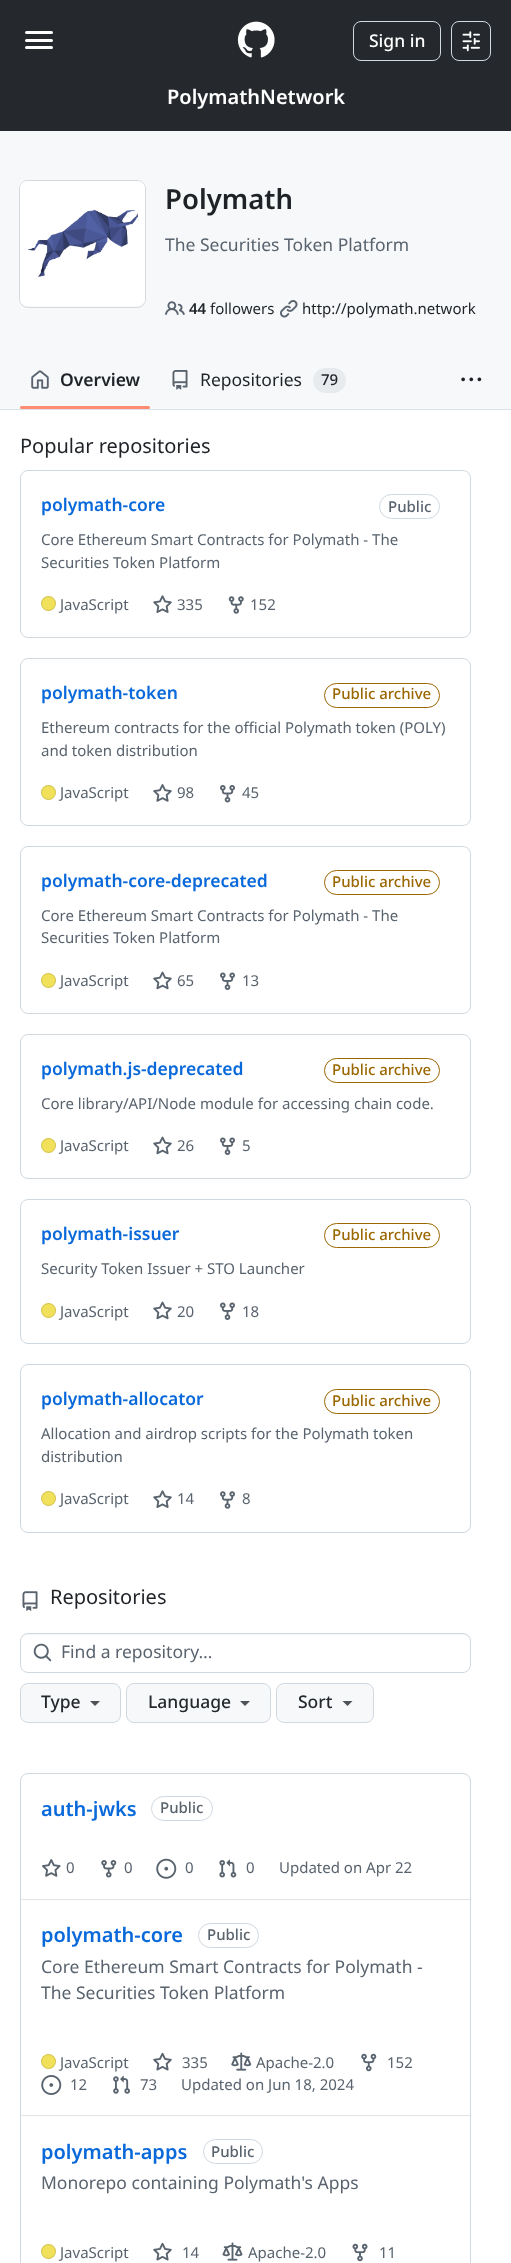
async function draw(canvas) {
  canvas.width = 511;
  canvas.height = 2263;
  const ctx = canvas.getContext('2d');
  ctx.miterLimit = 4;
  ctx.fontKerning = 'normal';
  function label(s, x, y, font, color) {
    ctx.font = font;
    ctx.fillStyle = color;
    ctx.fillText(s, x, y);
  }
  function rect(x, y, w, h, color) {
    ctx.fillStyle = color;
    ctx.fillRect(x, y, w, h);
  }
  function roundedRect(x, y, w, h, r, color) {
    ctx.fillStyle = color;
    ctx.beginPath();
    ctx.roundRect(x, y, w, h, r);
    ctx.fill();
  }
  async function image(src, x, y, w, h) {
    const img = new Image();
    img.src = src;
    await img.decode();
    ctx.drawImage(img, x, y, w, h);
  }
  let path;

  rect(0, 0, 511, 2263, '#fff');
  rect(0, 0, 511, 131, '#25292e');
  roundedRect(25, 31, 28, 3, 1.5, '#fff');
  roundedRect(25, 39, 28, 3, 1.5, '#fff');
  roundedRect(25, 46, 28, 3, 1.5, '#fff');
  await image('assets/img1.png', 237, 21, 38, 37);
  ctx.beginPath();
  ctx.roundRect(353.5, 21.5, 87, 39, 7.5);
  ctx.strokeStyle = '#d1d9e0';
  ctx.stroke();
  label('Sign in', 369, 47, '500 17.5px Noto Sans', '#fff');
  ctx.beginPath();
  ctx.roundRect(451.5, 21.5, 39, 39, 7.5);
  ctx.stroke();
  await image('assets/img2.png', 462, 31, 18, 21);
  label('PolymathNetwork', 167, 104, '600 20px Noto Sans', '#fff');
  rect(0, 131, 511, 278, '#f6f8fa');
  ctx.beginPath();
  ctx.roundRect(19.5, 180.5, 126, 127, 8.5);
  ctx.strokeStyle = '#d6d8db';
  ctx.stroke();
  roundedRect(20, 181, 125, 125, 8, '#fff');
  await image('assets/img3.png', 20, 182, 125, 124);
  label('Polymath', 165, 209, '600 27.5px Noto Sans', '#1f2328');
  label('The Securities Token Platform', 165, 251, '17.5px Noto Sans', '#59636e');
  await image('assets/img4.png', 165, 301, 20, 14);
  label('44', 189, 314, '600 15px Noto Sans', '#1f2328');
  label('followers', 210, 314, '15px Noto Sans', '#1f2328');
  await image('assets/img5.png', 280, 300, 18, 18);
  label('http://polymath.network', 302, 314, '15px Noto Sans', '#1f2328');
  rect(0, 409, 511, 1, '#dce2e8');
  await image('assets/img6.png', 31, 370, 18, 19);
  label('Overview', 60, 386, '600 17.5px Noto Sans', '#1f2328');
  roundedRect(20, 406, 130, 3, 1.5, '#fd8c73');
  await image('assets/img7.png', 172, 370, 16, 20);
  label('Repositories', 200, 386, '17.5px Noto Sans', '#1f2328');
  roundedRect(313, 368, 33, 25, 12.5, '#e8ebee');
  label('79', 321, 385, '500 15px Noto Sans', '#1f2328');
  await image('assets/img8.png', 461, 377, 21, 5);
  label('Popular repositories', 20, 453, '20px Noto Sans', '#1f2328');
  ctx.beginPath();
  ctx.roundRect(20.5, 470.5, 450, 167, 7.5);
  ctx.strokeStyle = '#d1d9e0';
  ctx.stroke();
  label('polymath-core', 41, 511, '600 17.5px Noto Sans', '#0969da');
  ctx.beginPath();
  ctx.roundRect(379.5, 494.5, 60, 24, 12);
  ctx.stroke();
  label('Public', 388, 512, '500 15px Noto Sans', '#59636e');
  label('Core Ethereum Smart Contracts for Polymath - The', 41, 545, '15px Noto Sans', '#59636e');
  label('Securities Token Platform', 41, 568, '15px Noto Sans', '#59636e');
  ctx.fillStyle = '#f1e05a';
  ctx.beginPath();
  ctx.arc(48.5, 603.5, 7.5, 0, 2 * Math.PI);
  ctx.fill();
  ctx.beginPath();
  ctx.arc(48.5, 603.5, 7, 0, 2 * Math.PI);
  ctx.strokeStyle = '#1f232826';
  ctx.stroke();
  label('JavaScript', 60, 610, '15px Noto Sans', '#59636e');
  await image('assets/img9.png', 153, 595, 19, 18);
  label('335', 177, 610, '15px Noto Sans', '#59636e');
  await image('assets/img10.png', 228, 596, 16, 18);
  label('152', 250, 610, '15px Noto Sans', '#59636e');
  ctx.beginPath();
  ctx.roundRect(20.5, 658.5, 450, 167, 7.5);
  ctx.strokeStyle = '#d1d9e0';
  ctx.stroke();
  label('polymath-token', 41, 699, '600 17.5px Noto Sans', '#0969da');
  ctx.beginPath();
  ctx.roundRect(324.5, 683.5, 115, 24, 12);
  ctx.strokeStyle = '#9a6700';
  ctx.stroke();
  label('Public archive', 332, 699, '500 15px Noto Sans', '#9a6700');
  label('Ethereum contracts for the official Polymath token (POLY)', 41, 733, '15px Noto Sans', '#59636e');
  label('and token distribution', 41, 756, '15px Noto Sans', '#59636e');
  ctx.fillStyle = '#f1e05a';
  ctx.beginPath();
  ctx.arc(48.5, 792.5, 7.5, 0, 2 * Math.PI);
  ctx.fill();
  ctx.beginPath();
  ctx.arc(48.5, 792.5, 7, 0, 2 * Math.PI);
  ctx.strokeStyle = '#1f232826';
  ctx.stroke();
  label('JavaScript', 60, 798, '15px Noto Sans', '#59636e');
  await image('assets/img11.png', 153, 784, 19, 18);
  label('98', 177, 798, '15px Noto Sans', '#59636e');
  await image('assets/img12.png', 220, 785, 15, 18);
  label('45', 242, 798, '15px Noto Sans', '#59636e');
  ctx.beginPath();
  ctx.roundRect(20.5, 846.5, 450, 167, 7.5);
  ctx.strokeStyle = '#d1d9e0';
  ctx.stroke();
  label('polymath-core-deprecated', 41, 887, '600 17.5px Noto Sans', '#0969da');
  ctx.beginPath();
  ctx.roundRect(324.5, 870.5, 115, 24, 12);
  ctx.strokeStyle = '#9a6700';
  ctx.stroke();
  label('Public archive', 332, 887, '500 15px Noto Sans', '#9a6700');
  label('Core Ethereum Smart Contracts for Polymath - The', 41, 921, '15px Noto Sans', '#59636e');
  label('Securities Token Platform', 41, 943, '15px Noto Sans', '#59636e');
  ctx.fillStyle = '#f1e05a';
  ctx.beginPath();
  ctx.arc(48.5, 980.5, 7.5, 0, 2 * Math.PI);
  ctx.fill();
  ctx.beginPath();
  ctx.arc(48.5, 980.5, 7, 0, 2 * Math.PI);
  ctx.strokeStyle = '#1f232826';
  ctx.stroke();
  label('JavaScript', 60, 986, '15px Noto Sans', '#59636e');
  await image('assets/img13.png', 153, 971, 19, 19);
  label('65', 177, 986, '15px Noto Sans', '#59636e');
  await image('assets/img14.png', 220, 972, 15, 18);
  label('13', 242, 986, '15px Noto Sans', '#59636e');
  ctx.beginPath();
  ctx.roundRect(20.5, 1034.5, 450, 144, 7.5);
  ctx.strokeStyle = '#d1d9e0';
  ctx.stroke();
  label('polymath.js-deprecated', 41, 1075, '600 17.5px Noto Sans', '#0969da');
  ctx.beginPath();
  ctx.roundRect(324.5, 1058.5, 115, 24, 12);
  ctx.strokeStyle = '#9a6700';
  ctx.stroke();
  label('Public archive', 332, 1075, '500 15px Noto Sans', '#9a6700');
  label('Core library/API/Node module for accessing chain code.', 41, 1109, '15px Noto Sans', '#59636e');
  ctx.fillStyle = '#f1e05a';
  ctx.beginPath();
  ctx.arc(48.5, 1145.5, 7.5, 0, 2 * Math.PI);
  ctx.fill();
  ctx.beginPath();
  ctx.arc(48.5, 1145.5, 7, 0, 2 * Math.PI);
  ctx.strokeStyle = '#1f232826';
  ctx.stroke();
  label('JavaScript', 60, 1151, '15px Noto Sans', '#59636e');
  await image('assets/img13.png', 153, 1136, 19, 19);
  label('26', 177, 1151, '15px Noto Sans', '#59636e');
  await image('assets/img14.png', 220, 1137, 15, 18);
  label('5', 242, 1151, '15px Noto Sans', '#59636e');
  ctx.beginPath();
  ctx.roundRect(20.5, 1199.5, 450, 144, 7.5);
  ctx.strokeStyle = '#d1d9e0';
  ctx.stroke();
  label('polymath-issuer', 41, 1240, '600 17.5px Noto Sans', '#0969da');
  ctx.beginPath();
  ctx.roundRect(324.5, 1223.5, 115, 24, 12);
  ctx.strokeStyle = '#9a6700';
  ctx.stroke();
  label('Public archive', 332, 1240, '500 15px Noto Sans', '#9a6700');
  label('Security Token Issuer + STO Launcher', 41, 1274, '15px Noto Sans', '#59636e');
  ctx.fillStyle = '#f1e05a';
  ctx.beginPath();
  ctx.arc(48.5, 1310.5, 7.5, 0, 2 * Math.PI);
  ctx.fill();
  ctx.beginPath();
  ctx.arc(48.5, 1310.5, 7, 0, 2 * Math.PI);
  ctx.strokeStyle = '#1f232826';
  ctx.stroke();
  label('JavaScript', 60, 1317, '15px Noto Sans', '#59636e');
  await image('assets/img13.png', 153, 1301, 19, 19);
  label('20', 177, 1317, '15px Noto Sans', '#59636e');
  await image('assets/img14.png', 220, 1302, 15, 18);
  label('18', 242, 1317, '15px Noto Sans', '#59636e');
  ctx.beginPath();
  ctx.roundRect(20.5, 1364.5, 450, 168, 7.5);
  ctx.strokeStyle = '#d1d9e0';
  ctx.stroke();
  label('polymath-allocator', 41, 1405, '600 17.5px Noto Sans', '#0969da');
  ctx.beginPath();
  ctx.roundRect(324.5, 1389.5, 115, 24, 12);
  ctx.strokeStyle = '#9a6700';
  ctx.stroke();
  label('Public archive', 332, 1406, '500 15px Noto Sans', '#9a6700');
  label('Allocation and airdrop scripts for the Polymath token', 41, 1439, '15px Noto Sans', '#59636e');
  label('distribution', 41, 1462, '15px Noto Sans', '#59636e');
  ctx.fillStyle = '#f1e05a';
  ctx.beginPath();
  ctx.arc(48.5, 1498.5, 7.5, 0, 2 * Math.PI);
  ctx.fill();
  ctx.beginPath();
  ctx.arc(48.5, 1498.5, 7, 0, 2 * Math.PI);
  ctx.strokeStyle = '#1f232826';
  ctx.stroke();
  label('JavaScript', 60, 1504, '15px Noto Sans', '#59636e');
  await image('assets/img9.png', 153, 1490, 19, 18);
  label('14', 177, 1504, '15px Noto Sans', '#59636e');
  await image('assets/img15.png', 220, 1491, 15, 18);
  label('8', 242, 1504, '15px Noto Sans', '#59636e');
  await image('assets/img16.png', 22, 1591, 16, 20);
  label('Repositories', 50, 1604, '20px Noto Sans', '#1f2328');
  ctx.fillStyle = '#f6f6f6';
  path = new Path2D('M28 1635H464C467 1635 470 1638 470 1641V1640C470 1637 467 1634 464 1634H27C24 1634 21 1637 21 1640V1641C21 1638 24 1635 28 1635Z');
  ctx.fill(path);
  ctx.beginPath();
  ctx.roundRect(20.5, 1633.5, 450, 39, 7.5);
  ctx.strokeStyle = '#d1d9e0';
  ctx.stroke();
  await image('assets/img17.png', 33, 1643, 19, 19);
  label('Find a repository…', 61, 1658, '17.5px Noto Sans', '#59636e');
  ctx.fillStyle = '#f6f8fa';
  ctx.beginPath();
  ctx.roundRect(20.5, 1683.5, 100, 39, 7.5);
  ctx.fill();
  ctx.stroke();
  label('Type', 41, 1708, '500 17.5px Noto Sans', '#25292e');
  ctx.fillStyle = '#4f5257';
  path = new Path2D('M90 1701H100L95 1706Z');
  ctx.fill(path);
  ctx.fillStyle = '#f6f8fa';
  ctx.beginPath();
  ctx.roundRect(126.5, 1683.5, 144, 39, 7.5);
  ctx.fill();
  ctx.stroke();
  label('Language', 148, 1708, '500 17.5px Noto Sans', '#25292e');
  ctx.fillStyle = '#4f5257';
  path = new Path2D('M240 1701H250L245 1706Z');
  ctx.fill(path);
  ctx.fillStyle = '#f6f8fa';
  ctx.beginPath();
  ctx.roundRect(276.5, 1683.5, 97, 39, 7.5);
  ctx.fill();
  ctx.stroke();
  label('Sort', 298, 1708, '500 17.5px Noto Sans', '#25292e');
  ctx.fillStyle = '#4f5257';
  path = new Path2D('M342.5 1701H352.5L347.5 1706Z');
  ctx.fill(path);
  ctx.beginPath();
  ctx.roundRect(20.5, 1773.5, 450, 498, 7.5);
  ctx.stroke();
  label('auth-jwks', 41, 1816, '600 20px Noto Sans', '#0969da');
  ctx.beginPath();
  ctx.roundRect(151.5, 1796.5, 61, 24, 12);
  ctx.stroke();
  label('Public', 160, 1813, '500 15px Noto Sans', '#59636e');
  await image('assets/img18.png', 42, 1859, 19, 18);
  label('0', 66, 1873, '15px Noto Sans', '#59636e');
  await image('assets/img19.png', 101, 1860, 16, 18);
  label('0', 124, 1873, '15px Noto Sans', '#59636e');
  await image('assets/img20.png', 156, 1858, 21, 21);
  label('0', 185, 1873, '15px Noto Sans', '#59636e');
  await image('assets/img21.png', 219, 1859, 18, 19);
  label('0', 246, 1873, '15px Noto Sans', '#59636e');
  label('Updated on Apr 22', 279, 1873, '15px Noto Sans', '#59636e');
  rect(21, 1899, 449, 1, '#dfe4e9');
  label('polymath-core', 41, 1942, '600 20px Noto Sans', '#0969da');
  ctx.beginPath();
  ctx.roundRect(198.5, 1923.5, 60, 24, 12);
  ctx.stroke();
  label('Public', 207, 1940, '500 15px Noto Sans', '#59636e');
  label('Core Ethereum Smart Contracts for Polymath -', 41, 1973, '17.5px Noto Sans', '#59636e');
  label('The Securities Token Platform', 41, 1999, '17.5px Noto Sans', '#59636e');
  ctx.fillStyle = '#f1e05a';
  ctx.beginPath();
  ctx.arc(48.5, 2061.5, 7.5, 0, 2 * Math.PI);
  ctx.fill();
  ctx.beginPath();
  ctx.arc(48.5, 2061.5, 7, 0, 2 * Math.PI);
  ctx.strokeStyle = '#1f232826';
  ctx.stroke();
  label('JavaScript', 60, 2068, '15px Noto Sans', '#59636e');
  await image('assets/img22.png', 153, 2052, 19, 19);
  label('335', 182, 2068, '15px Noto Sans', '#59636e');
  await image('assets/img23.png', 231, 2052, 21, 19);
  label('Apache-2.0', 256, 2068, '15px Noto Sans', '#59636e');
  await image('assets/img24.png', 361, 2053, 16, 19);
  label('152', 387, 2068, '15px Noto Sans', '#59636e');
  await image('assets/img25.png', 41, 2075, 21, 20);
  label('12', 70, 2090, '15px Noto Sans', '#59636e');
  await image('assets/img26.png', 113, 2075, 17, 19);
  label('73', 140, 2090, '15px Noto Sans', '#59636e');
  label('Updated on Jun 18, 2024', 181, 2090, '15px Noto Sans', '#59636e');
  rect(21, 2115, 449, 1, '#dfe4e9');
  label('polymath-apps', 41, 2159, '600 20px Noto Sans', '#0969da');
  ctx.beginPath();
  ctx.roundRect(203.5, 2139.5, 59, 24, 12);
  ctx.strokeStyle = '#d1d9e0';
  ctx.stroke();
  label('Public', 211, 2157, '500 15px Noto Sans', '#59636e');
  label('Monorepo containing Polymath\'s Apps', 41, 2189, '17.5px Noto Sans', '#59636e');
  ctx.fillStyle = '#f1e05a';
  ctx.beginPath();
  ctx.arc(48.5, 2251.5, 7.5, 0, 2 * Math.PI);
  ctx.fill();
  ctx.beginPath();
  ctx.arc(48.5, 2251.5, 7, 0, 2 * Math.PI);
  ctx.strokeStyle = '#1f232826';
  ctx.stroke();
  label('JavaScript', 60, 2258, '15px Noto Sans', '#59636e');
  await image('assets/img22.png', 153, 2242, 19, 19);
  label('14', 182, 2258, '15px Noto Sans', '#59636e');
  await image('assets/img27.png', 222, 2242, 21, 19);
  label('Apache-2.0', 248, 2258, '15px Noto Sans', '#59636e');
  await image('assets/img28.png', 352, 2243, 16, 19);
  label('11', 379, 2258, '15px Noto Sans', '#59636e');
}

draw(document.querySelector('canvas'));
